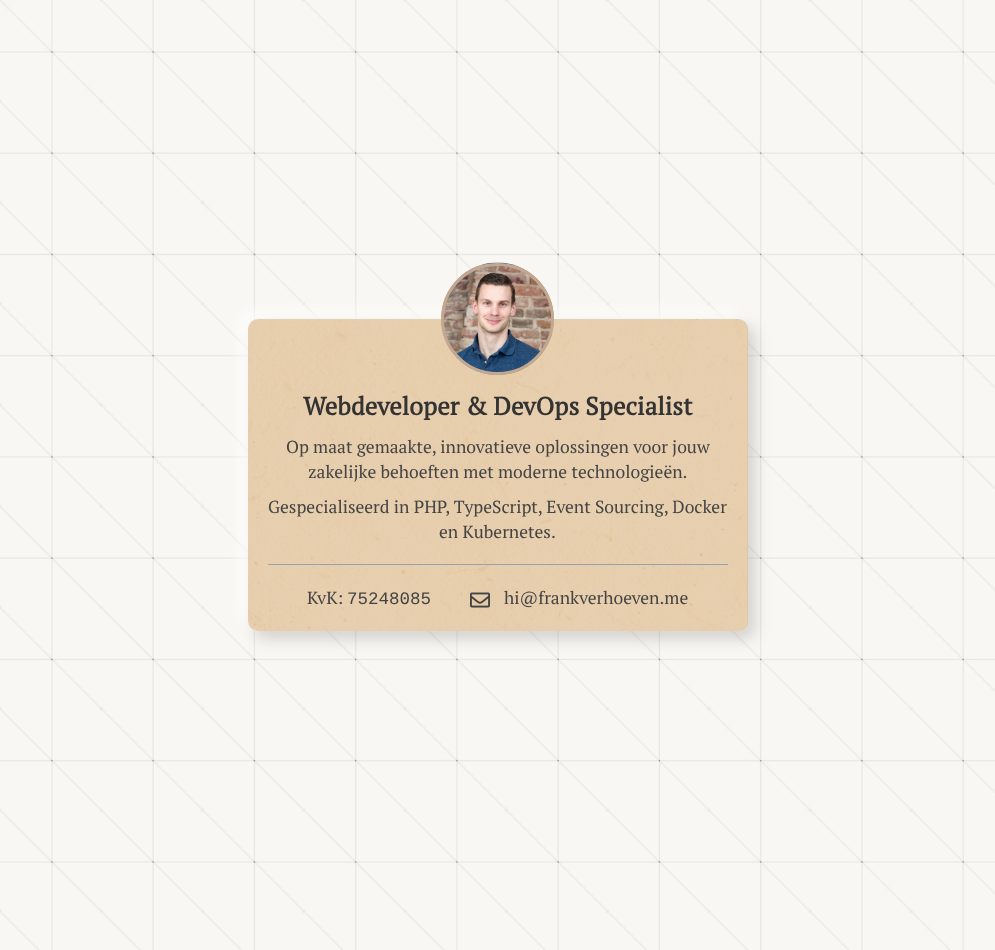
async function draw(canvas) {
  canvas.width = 995;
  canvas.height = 950;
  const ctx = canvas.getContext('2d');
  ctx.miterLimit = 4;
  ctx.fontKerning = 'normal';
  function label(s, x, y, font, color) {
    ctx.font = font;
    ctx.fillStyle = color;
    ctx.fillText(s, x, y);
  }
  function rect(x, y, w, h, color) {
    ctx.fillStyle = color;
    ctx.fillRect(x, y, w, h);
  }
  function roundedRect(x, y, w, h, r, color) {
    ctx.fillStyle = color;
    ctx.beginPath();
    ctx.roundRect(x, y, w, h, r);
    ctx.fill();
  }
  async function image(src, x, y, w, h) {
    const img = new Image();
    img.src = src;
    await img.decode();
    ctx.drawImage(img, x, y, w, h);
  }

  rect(0, 0, 995, 950, '#f9f7f3');
  await image('assets/img1.png', 0, 0, 995, 950);
  ctx.fillStyle = '#ffffffcc';
  ctx.filter = 'blur(7.5px)';
  ctx.beginPath();
  ctx.roundRect(240, 311, 500, 313, 10);
  ctx.fill();
  ctx.filter = 'none';
  ctx.fillStyle = '#00000026';
  ctx.filter = 'blur(7.5px)';
  ctx.beginPath();
  ctx.roundRect(255, 326, 500, 313, 10);
  ctx.fill();
  ctx.filter = 'none';
  roundedRect(248, 319, 500, 312, 10, '#e0c096');
  await image('assets/img2.png', 248, 319, 500, 312);
  await image('assets/img3.png', 441, 262, 113, 113);
  ctx.beginPath();
  ctx.roundRect(442.5, 264.5, 110, 109, 54.5);
  ctx.strokeStyle = '#c3a891';
  ctx.lineWidth = 3;
  ctx.stroke();
  label('Webdeveloper & DevOps Specialist', 303, 415, 'bold 25px PT Serif', '#333');
  label('Op maat gemaakte, innovatieve oplossingen voor jouw', 286, 453, '17.5px PT Serif', '#444');
  label('zakelijke behoeften met moderne technologieën.', 308, 478, '17.5px PT Serif', '#444');
  label('Gespecialiseerd in PHP, TypeScript, Event Sourcing, Docker', 268, 513, '17.5px PT Serif', '#444');
  label('en Kubernetes.', 439, 538, '17.5px PT Serif', '#444');
  rect(268, 564, 460, 1, '#99a1af');
  label('KvK:', 307, 604, '17.5px PT Serif', '#444');
  label('75248085', 347, 604, '17.5px Liberation Mono', '#444');
  await image('assets/img4.png', 470, 592, 20, 16);
  label('hi@frankverhoeven.me', 504, 604, '17.5px PT Serif', '#444');
}

draw(document.querySelector('canvas'));
